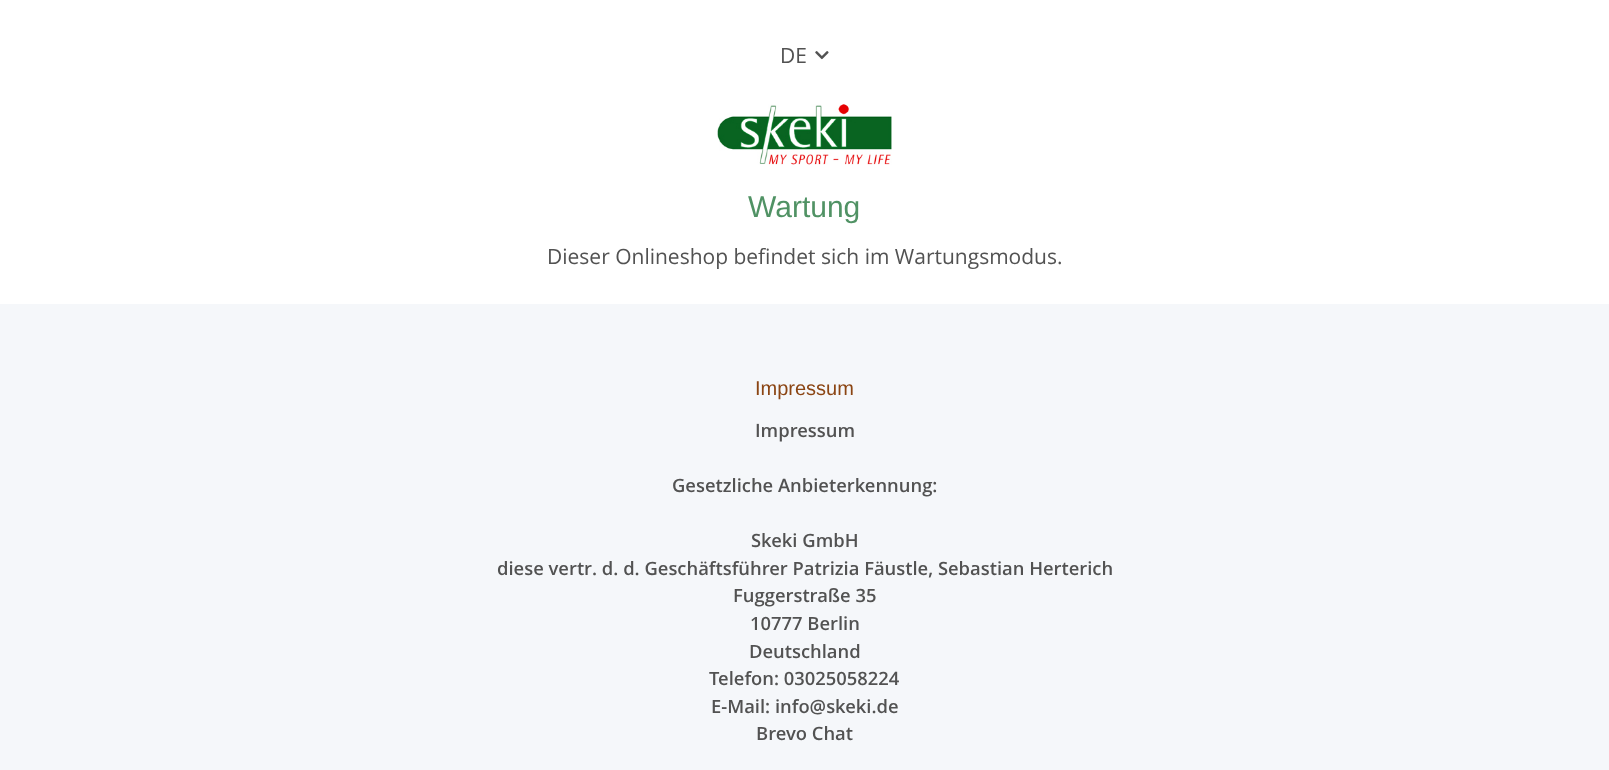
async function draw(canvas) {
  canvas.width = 1609;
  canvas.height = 770;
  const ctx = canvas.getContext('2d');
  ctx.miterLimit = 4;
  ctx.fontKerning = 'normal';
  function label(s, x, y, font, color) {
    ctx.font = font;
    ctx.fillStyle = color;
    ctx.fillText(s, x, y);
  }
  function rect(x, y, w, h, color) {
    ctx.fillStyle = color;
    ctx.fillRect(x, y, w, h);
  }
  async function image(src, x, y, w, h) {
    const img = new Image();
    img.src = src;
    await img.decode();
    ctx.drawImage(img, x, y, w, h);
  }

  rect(0, 0, 1609, 770, '#fff');
  label('DE', 780, 63, '21px Open Sans', '#525252');
  await image('assets/img1.png', 815, 51, 14, 9);
  await image('assets/img2.png', 717, 104, 175, 61);
  label('Wartung', 748, 217, '30px Liberation Sans', '#509264');
  label('Dieser Onlineshop befindet sich im Wartungsmodus.', 547, 264, '21px Open Sans', '#525252');
  rect(0, 304, 1609, 466, '#f5f7fa');
  label('Impressum', 755, 395, '20px Liberation Sans', '#8b4513');
  label('Impressum', 755, 437, '600 18.4px Open Sans', '#525252');
  label('Gesetzliche Anbieterkennung:', 672, 492, '600 18.4px Open Sans', '#525252');
  label('Skeki GmbH', 751, 547, '600 18.4px Open Sans', '#525252');
  label('diese vertr. d. d. Geschäftsführer Patrizia Fäustle, Sebastian Herterich', 497, 575, '600 18.4px Open Sans', '#525252');
  label('Fuggerstraße 35', 733, 602, '600 18.4px Open Sans', '#525252');
  label('10777 Berlin', 750, 630, '600 18.4px Open Sans', '#525252');
  label('Deutschland', 749, 658, '600 18.4px Open Sans', '#525252');
  label('Telefon: 03025058224', 709, 685, '600 18.4px Open Sans', '#525252');
  label('E-Mail: info@skeki.de', 711, 713, '600 18.4px Open Sans', '#525252');
  label('Brevo Chat', 756, 740, '600 18.4px Open Sans', '#525252');
}

draw(document.querySelector('canvas'));
